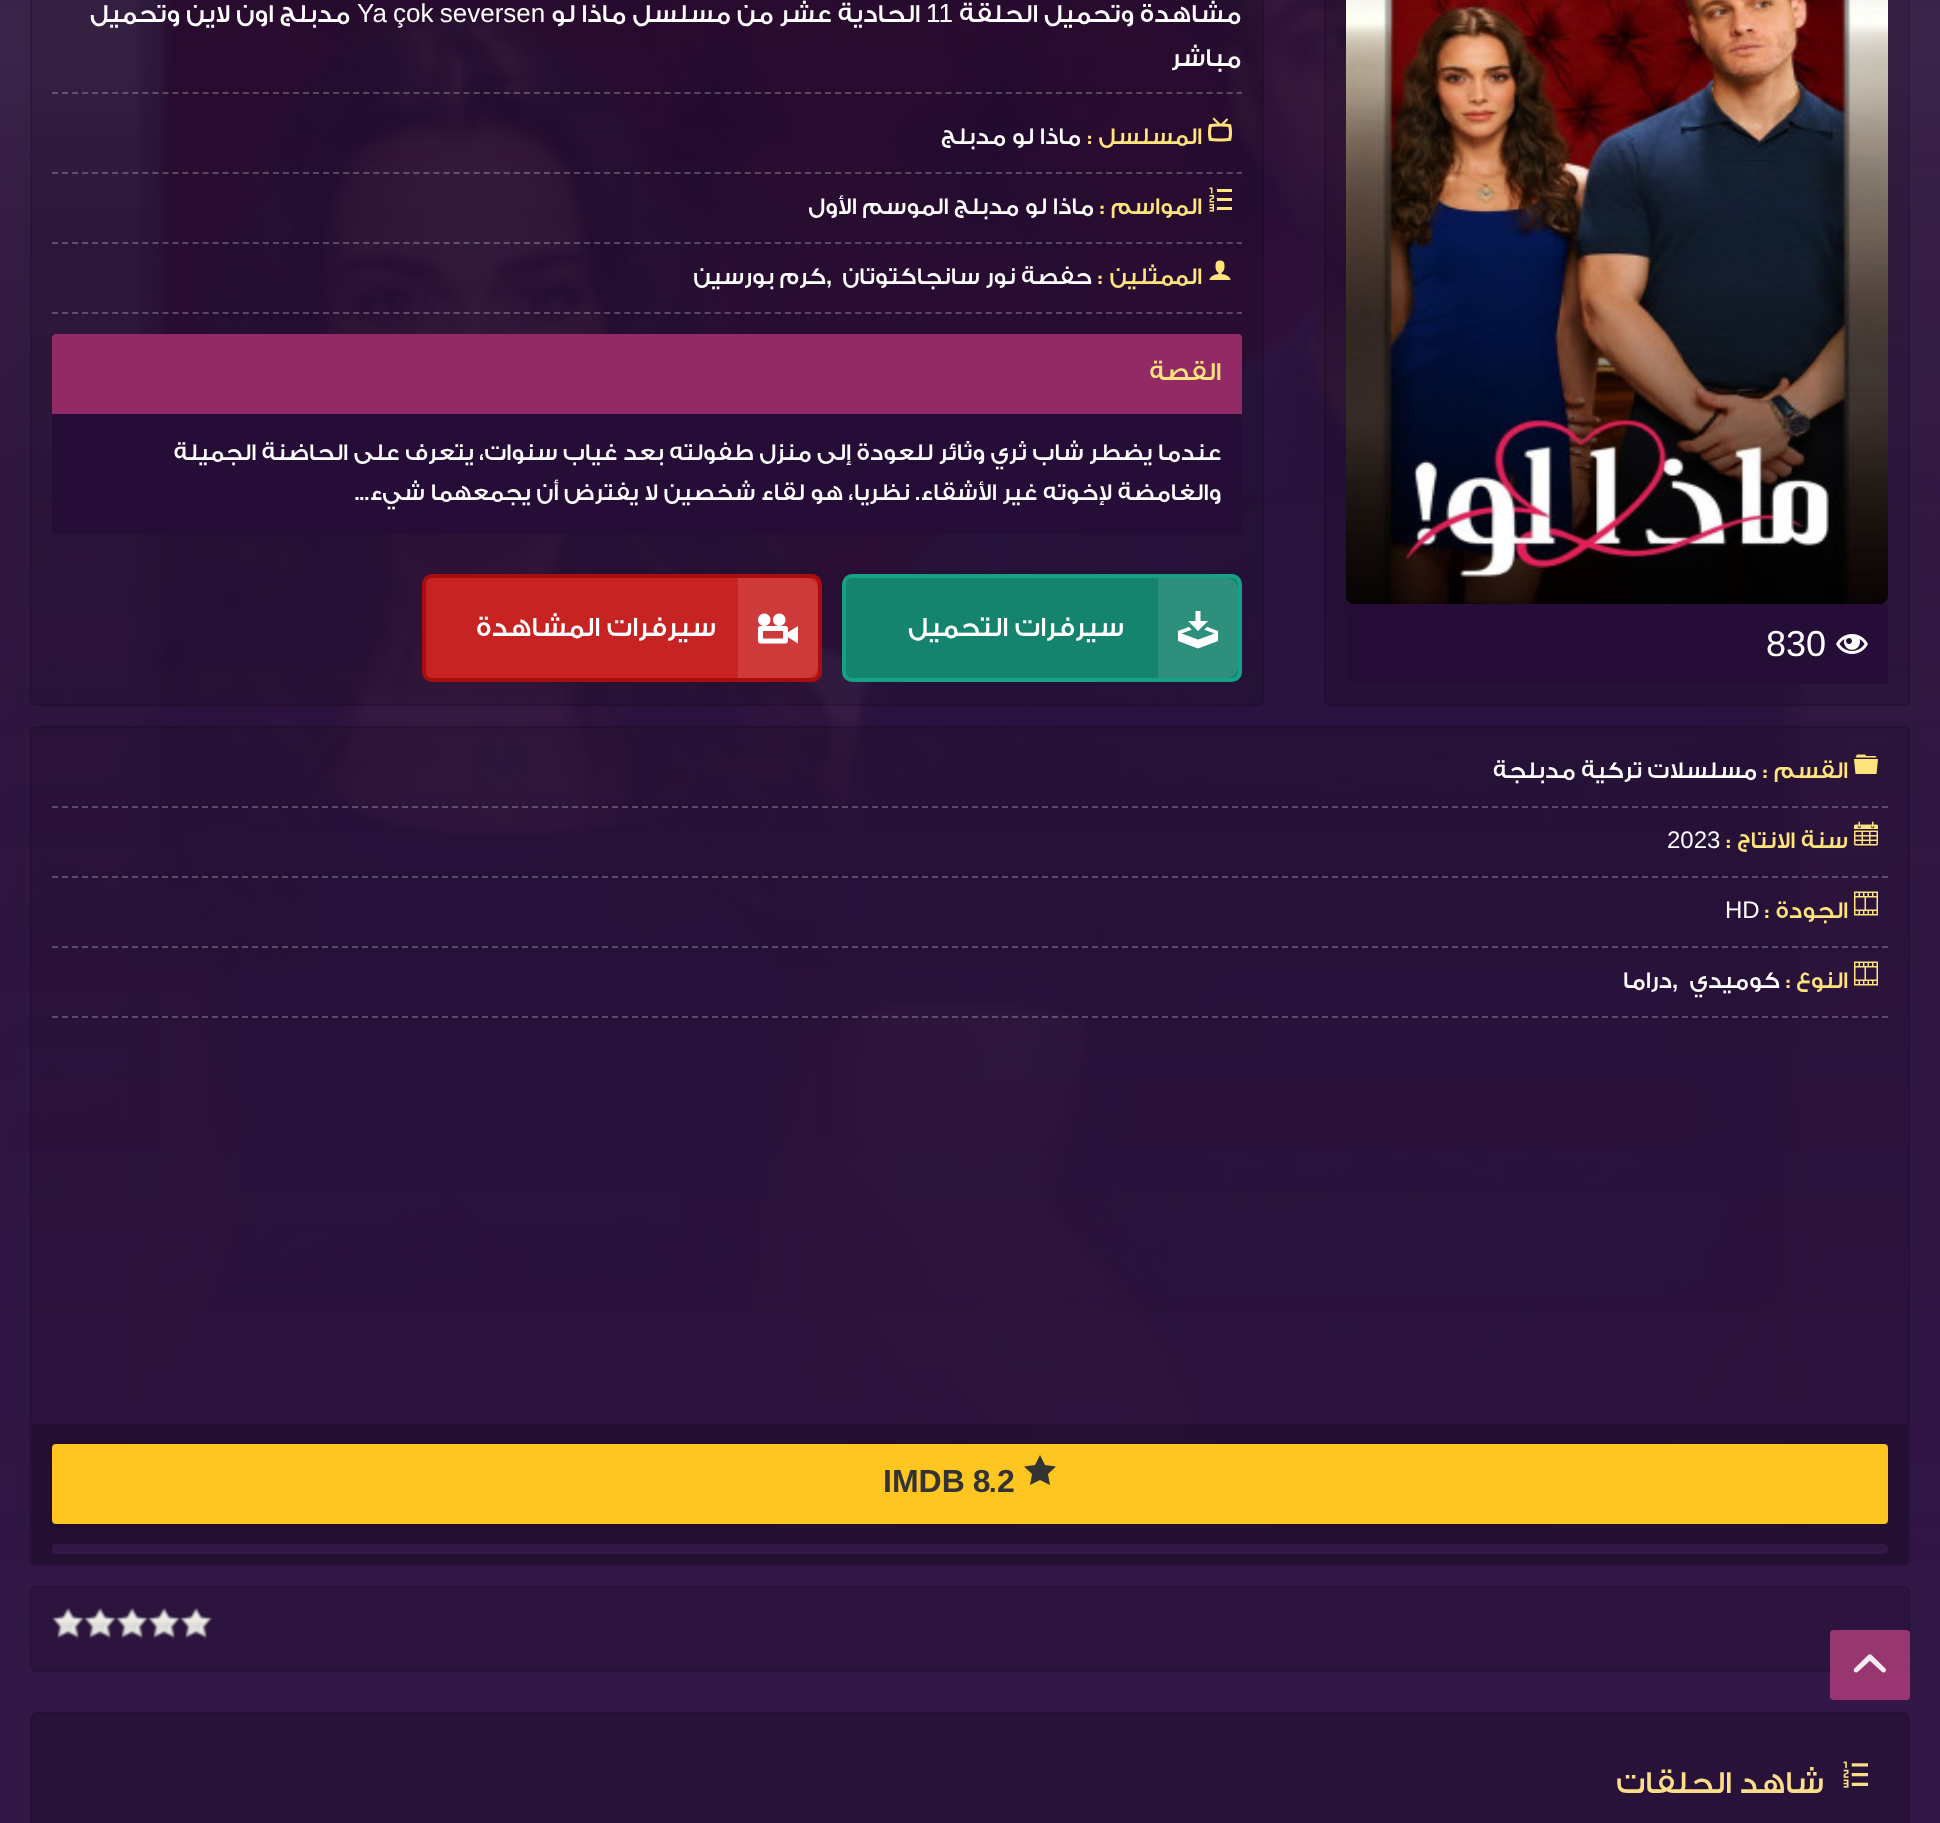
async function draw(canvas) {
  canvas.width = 1940;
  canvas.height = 1823;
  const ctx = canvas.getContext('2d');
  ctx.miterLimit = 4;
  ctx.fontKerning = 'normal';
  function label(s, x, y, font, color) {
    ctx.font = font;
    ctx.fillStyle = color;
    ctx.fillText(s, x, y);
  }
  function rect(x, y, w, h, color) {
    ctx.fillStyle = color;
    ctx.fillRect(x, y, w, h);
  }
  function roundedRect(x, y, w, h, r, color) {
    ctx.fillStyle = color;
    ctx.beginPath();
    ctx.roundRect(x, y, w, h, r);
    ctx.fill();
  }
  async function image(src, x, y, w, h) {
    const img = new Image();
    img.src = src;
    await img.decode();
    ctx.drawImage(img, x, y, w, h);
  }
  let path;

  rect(0, 0, 1940, 1823, '#321747');
  await image('assets/img1.png', 0, 0, 1940, 1692);
  roundedRect(1324, -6, 586, 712, 6, '#0000001a');
  ctx.beginPath();
  ctx.roundRect(1325, -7, 584, 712, 5);
  ctx.strokeStyle = '#0000001a';
  ctx.lineWidth = 2;
  ctx.stroke();
  await image('assets/img2.png', 1346, 0, 542, 604);
  rect(1346, 604, 542, 80, '#260d38');
  await image('assets/img3.png', 1836, 634, 32, 20);
  label('830', 1766, 656, '36px Liberation Sans', '#fff');
  roundedRect(30, -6, 1234, 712, 6, '#0000001a');
  ctx.beginPath();
  ctx.roundRect(31, -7, 1232, 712, 5);
  ctx.stroke();
  path = new Path2D('M52 93H1242');
  ctx.strokeStyle = '#ffffff3d';
  ctx.setLineDash([6, 4.04]);
  ctx.stroke(path);
  ctx.direction = 'rtl';
  label('مشاهدة وتحميل الحلقة', 1241, 22, '500 26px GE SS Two', '#fff');
  ctx.direction = 'ltr';
  label('11', 926, 22, '26px Liberation Sans', '#fff');
  ctx.direction = 'rtl';
  label('الحادية عشر من مسلسل ماذا لو', 920, 22, '500 26px GE SS Two', '#fff');
  ctx.wordSpacing = '-1px';
  ctx.direction = 'ltr';
  label('Ya çok seversen', 357, 22, '26px Liberation Sans', '#fff');
  ctx.wordSpacing = '0px';
  ctx.direction = 'rtl';
  label('مدبلج اون لاين وتحميل', 350, 22, '500 26px GE SS Two', '#fff');
  label('مباشر', 1241, 66, '500 26px GE SS Two', '#fff');
  path = new Path2D('M52 173H1242');
  ctx.stroke(path);
  await image('assets/img4.png', 1208, 117, 24, 25);
  label('المسلسل :', 1202, 144, '500 24px GE SS Two', '#ffe37c');
  label('ماذا لو مدبلج', 1081, 144, '500 24px GE SS Two', '#fff');
  path = new Path2D('M52 243H1242');
  ctx.stroke(path);
  await image('assets/img5.png', 1209, 187, 23, 25);
  label('المواسم', 1202, 214, '500 24px GE SS Two', '#ffe37c');
  ctx.direction = 'ltr';
  label(':', 1100, 214, '500 24px GE SS Two', '#ffe37c');
  ctx.direction = 'rtl';
  label('ماذا لو مدبلج الموسم الأول', 1094, 214, '500 24px GE SS Two', '#fff');
  path = new Path2D('M52 313H1242');
  ctx.stroke(path);
  await image('assets/img6.png', 1209, 260, 22, 20);
  label('الممثلين', 1202, 284, '500 24px GE SS Two', '#ffe37c');
  ctx.direction = 'ltr';
  label(':', 1098, 284, '500 24px GE SS Two', '#ffe37c');
  ctx.direction = 'rtl';
  label('حفصة نور سانجاكتوتان', 1092, 284, '500 24px GE SS Two', '#fff');
  ctx.direction = 'ltr';
  label(',', 826, 284, 'bold 22px Liberation Sans', '#fff');
  ctx.direction = 'rtl';
  label('كرم بورسين', 826, 284, '500 24px GE SS Two', '#fff');
  rect(52, 334, 1190, 200, '#260d38');
  ctx.fillStyle = '#932965';
  ctx.beginPath();
  ctx.roundRect(52, 334, 1190, 80, [4, 4, 0, 0]);
  ctx.fill();
  label('القصة', 1221, 380, '500 26px GE SS Two', '#ffe37c');
  label('عندما يضطر شاب ثري وثائر للعودة إلى منزل طفولته بعد غياب سنوات، يتعرف على الحاضنة الجميلة', 1221, 460, '500 24px GE SS Two', '#fff');
  label('والغامضة لإخوته غير الأشقاء. نظريا، هو لقاء شخصين لا يفترض أن يجمعهما شيء...', 1221, 500, '500 24px GE SS Two', '#fff');
  ctx.fillStyle = '#15846e';
  ctx.beginPath();
  ctx.roundRect(844, 576, 396, 104, 8);
  ctx.fill();
  ctx.strokeStyle = '#16a085';
  ctx.lineWidth = 4;
  ctx.setLineDash([]);
  ctx.stroke();
  ctx.fillStyle = '#2c907d';
  ctx.beginPath();
  ctx.roundRect(1158, 578, 80, 100, [0, 12, 12, 0]);
  ctx.fill();
  await image('assets/img7.png', 1178, 611, 40, 38);
  label('سيرفرات التحميل', 1124, 636, '500 28px GE SS Two', '#fff');
  ctx.fillStyle = '#c82323';
  ctx.beginPath();
  ctx.roundRect(424, 576, 396, 104, 8);
  ctx.fill();
  ctx.strokeStyle = '#aa0d0d';
  ctx.stroke();
  ctx.fillStyle = '#ce3939';
  ctx.beginPath();
  ctx.roundRect(738, 578, 80, 100, [0, 12, 12, 0]);
  ctx.fill();
  await image('assets/img8.png', 758, 613, 40, 31);
  label('سيرفرات المشاهدة', 716, 636, '500 28px GE SS Two', '#fff');
  roundedRect(30, 726, 1880, 840, 6, '#0000001a');
  ctx.beginPath();
  ctx.roundRect(31, 727, 1878, 838, 5);
  ctx.strokeStyle = '#0000001a';
  ctx.lineWidth = 2;
  ctx.stroke();
  path = new Path2D('M52 807H1888');
  ctx.strokeStyle = '#ffffff3d';
  ctx.setLineDash([6, 4]);
  ctx.stroke(path);
  await image('assets/img9.png', 1854, 754, 24, 20);
  label('القسم :', 1848, 778, '500 24px GE SS Two', '#ffe37c');
  label('مسلسلات تركية مدبلجة', 1757, 778, '500 24px GE SS Two', '#fff');
  path = new Path2D('M52 877H1888');
  ctx.stroke(path);
  await image('assets/img10.png', 1854, 821, 24, 25);
  label('سنة الانتاج :', 1848, 848, '500 24px GE SS Two', '#ffe37c');
  ctx.direction = 'ltr';
  label('2023', 1667, 848, '24px Liberation Sans', '#fff');
  path = new Path2D('M52 947H1888');
  ctx.stroke(path);
  await image('assets/img11.png', 1854, 891, 24, 25);
  ctx.direction = 'rtl';
  label('الجودة :', 1848, 918, '500 24px GE SS Two', '#ffe37c');
  ctx.direction = 'ltr';
  label('HD', 1725, 918, '24px Liberation Sans', '#fff');
  path = new Path2D('M52 1017H1888');
  ctx.stroke(path);
  await image('assets/img12.png', 1854, 961, 24, 25);
  ctx.direction = 'rtl';
  label('النوع', 1848, 988, '500 24px GE SS Two', '#ffe37c');
  ctx.direction = 'ltr';
  label(':', 1786, 988, '500 24px GE SS Two', '#ffe37c');
  ctx.direction = 'rtl';
  label('كوميدي', 1780, 988, '500 24px GE SS Two', '#fff');
  ctx.direction = 'ltr';
  label(',', 1672, 988, 'bold 22px Liberation Sans', '#fff');
  ctx.direction = 'rtl';
  label('دراما', 1672, 988, '500 24px GE SS Two', '#fff');
  ctx.fillStyle = '#00000033';
  ctx.beginPath();
  ctx.roundRect(32, 1424, 1876, 140, [0, 0, 4, 4]);
  ctx.fill();
  roundedRect(52, 1444, 1836, 80, 4, '#ffc520');
  ctx.fillStyle = '#333';
  path = new Path2D('M1056 1466.5L1045 1465L1040 1455L1035 1465L1024 1466.5L1032 1474L1030 1485L1040 1480L1050 1485L1048 1474Z');
  ctx.fill(path);
  ctx.direction = 'ltr';
  label('2', 997, 1492, 'bold 32px Liberation Sans', '#333');
  label('.', 990, 1492, '500 32px GE SS Two', '#333');
  ctx.wordSpacing = '-1px';
  label('IMDB 8', 883, 1492, 'bold 32px Liberation Sans', '#333');
  roundedRect(52, 1544, 1836, 10, 4, '#321747');
  ctx.fillStyle = '#2d143f';
  ctx.beginPath();
  ctx.roundRect(31, 1587, 1878, 84, 5);
  ctx.fill();
  ctx.strokeStyle = '#291239';
  ctx.setLineDash([]);
  ctx.stroke();
  await image('assets/img13.png', 180, 1608, 32, 31);
  await image('assets/img13.png', 148, 1608, 32, 31);
  await image('assets/img13.png', 116, 1608, 32, 31);
  await image('assets/img13.png', 84, 1608, 32, 31);
  await image('assets/img13.png', 52, 1608, 32, 31);
  roundedRect(1830, 1630, 80, 70, 4, '#a43a75e6');
  await image('assets/img14.png', 1853, 1654, 33, 19);
  roundedRect(30, 1712, 1880, 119, 8, '#281239');
  ctx.beginPath();
  ctx.roundRect(31, 1713, 1878, 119, 7);
  ctx.strokeStyle = '#0000001a';
  ctx.stroke();
  await image('assets/img15.png', 1843, 1761, 25, 27);
  ctx.wordSpacing = '0px';
  ctx.direction = 'rtl';
  label('شاهد الحلقات', 1824, 1793, '500 32px GE SS Two', '#fcde8a');
}

draw(document.querySelector('canvas'));
